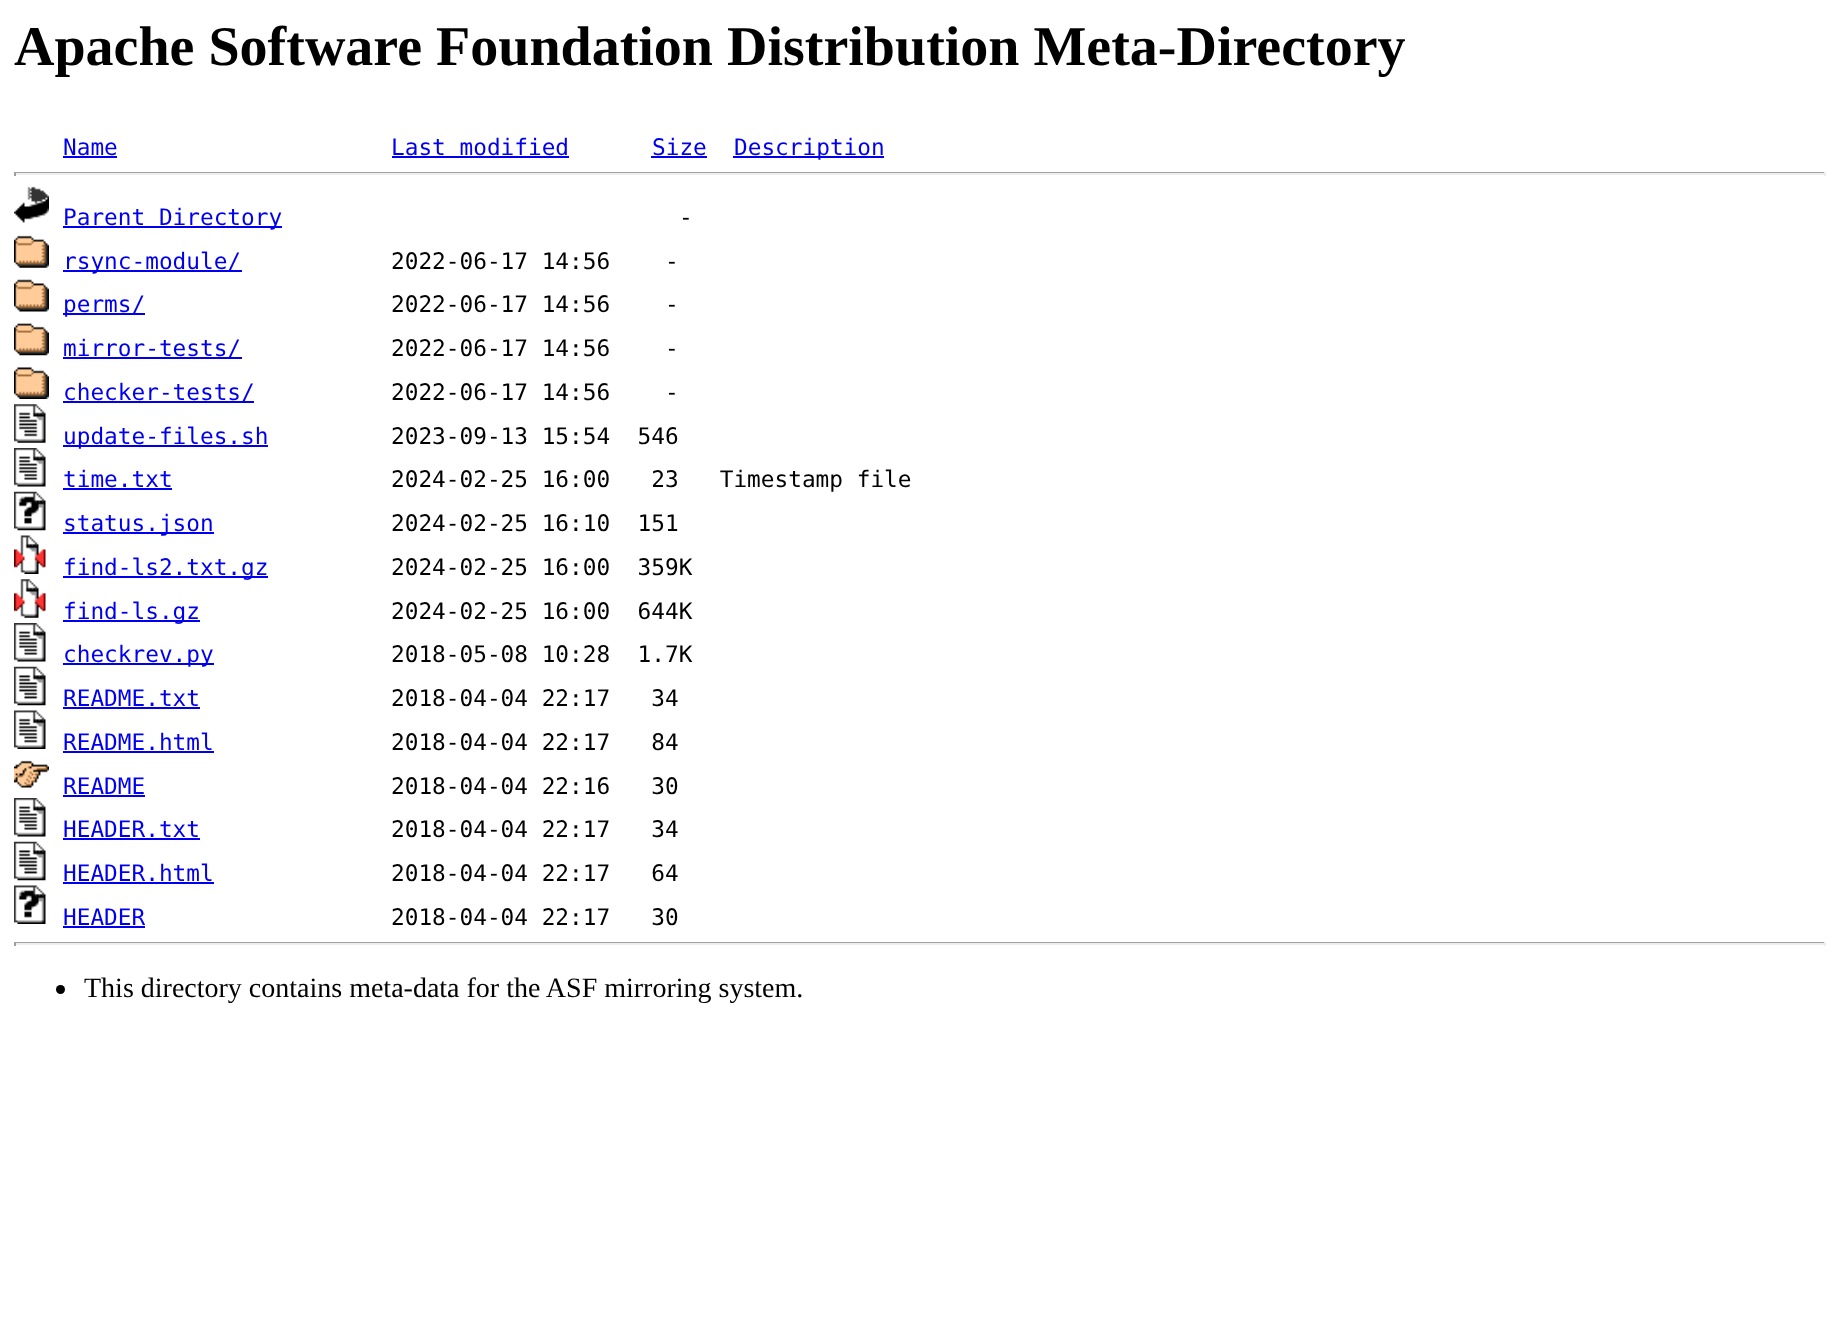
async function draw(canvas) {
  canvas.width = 1838;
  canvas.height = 1327;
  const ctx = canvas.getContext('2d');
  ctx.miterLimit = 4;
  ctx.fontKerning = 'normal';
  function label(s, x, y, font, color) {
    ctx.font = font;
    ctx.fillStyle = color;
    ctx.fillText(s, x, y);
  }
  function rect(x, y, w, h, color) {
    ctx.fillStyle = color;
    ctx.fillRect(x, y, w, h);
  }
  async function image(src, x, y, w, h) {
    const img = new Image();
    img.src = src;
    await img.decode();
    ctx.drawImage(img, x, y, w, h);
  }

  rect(0, 0, 1838, 1327, '#fff');
  label('Apache Software Foundation Distribution Meta-Directory', 14, 65, 'bold 56px Liberation Serif', '#000');
  label('Name', 63, 155, '22.75px DejaVu Sans Mono', '#00e');
  rect(63, 156, 54, 2, '#00e');
  label('Last modified', 391, 155, '22.75px DejaVu Sans Mono', '#00e');
  rect(392, 156, 177, 2, '#00e');
  label('Size', 652, 155, '22.75px DejaVu Sans Mono', '#00e');
  rect(651, 156, 56, 2, '#00e');
  rect(733, 156, 151, 2, '#00e');
  label('Description', 734, 155, '22.75px DejaVu Sans Mono', '#00e');
  rect(14, 172, 1811, 1, '#9f9f9f');
  rect(1824, 172, 2, 4, '#eee');
  rect(14, 173, 1811, 2, '#eee');
  rect(14, 172, 2, 4, '#9f9f9f');
  await image('assets/img1.png', 14, 186, 35, 37);
  rect(63, 226, 219, 2, '#00e');
  label('Parent Directory', 63, 225, '22.75px DejaVu Sans Mono', '#00e');
  label('-', 679, 225, '22.75px DejaVu Sans Mono', '#000');
  await image('assets/img2.png', 14, 235, 35, 33);
  rect(63, 270, 179, 2, '#00e');
  label('rsync-module/', 63, 269, '22.75px DejaVu Sans Mono', '#00e');
  label('2022-06-17 14:56    -', 391, 269, '22.75px DejaVu Sans Mono', '#000');
  await image('assets/img3.png', 14, 279, 35, 33);
  rect(63, 313, 82, 2, '#00e');
  label('perms/', 63, 312, '22.75px DejaVu Sans Mono', '#00e');
  label('2022-06-17 14:56    -', 391, 312, '22.75px DejaVu Sans Mono', '#000');
  await image('assets/img4.png', 14, 323, 35, 33);
  rect(63, 357, 179, 2, '#00e');
  label('mirror-tests/', 63, 356, '22.75px DejaVu Sans Mono', '#00e');
  label('2022-06-17 14:56    -', 391, 356, '22.75px DejaVu Sans Mono', '#000');
  await image('assets/img5.png', 14, 367, 35, 32);
  rect(63, 401, 191, 2, '#00e');
  label('checker-tests/', 63, 400, '22.75px DejaVu Sans Mono', '#00e');
  label('2022-06-17 14:56    -', 391, 400, '22.75px DejaVu Sans Mono', '#000');
  await image('assets/img6.png', 14, 404, 32, 39);
  rect(63, 445, 205, 2, '#00e');
  label('update-files.sh', 63, 444, '22.75px DejaVu Sans Mono', '#00e');
  label('2023-09-13 15:54  546', 391, 444, '22.75px DejaVu Sans Mono', '#000');
  await image('assets/img7.png', 14, 448, 32, 39);
  label('time.txt', 63, 487, '22.75px DejaVu Sans Mono', '#00e');
  rect(63, 488, 109, 2, '#00e');
  label('2024-02-25 16:00   23   Timestamp file', 391, 487, '22.75px DejaVu Sans Mono', '#000');
  await image('assets/img8.png', 14, 491, 32, 40);
  rect(63, 532, 151, 2, '#00e');
  label('status.json', 63, 531, '22.75px DejaVu Sans Mono', '#00e');
  label('2024-02-25 16:10  151', 391, 531, '22.75px DejaVu Sans Mono', '#000');
  await image('assets/img9.png', 14, 535, 32, 39);
  rect(63, 576, 205, 2, '#00e');
  label('find-ls2.txt.gz', 63, 575, '22.75px DejaVu Sans Mono', '#00e');
  label('2024-02-25 16:00  359K', 391, 575, '22.75px DejaVu Sans Mono', '#000');
  await image('assets/img10.png', 14, 579, 32, 39);
  rect(63, 620, 137, 2, '#00e');
  label('find-ls.gz', 63, 619, '22.75px DejaVu Sans Mono', '#00e');
  label('2024-02-25 16:00  644K', 391, 619, '22.75px DejaVu Sans Mono', '#000');
  await image('assets/img7.png', 14, 623, 32, 39);
  rect(63, 663, 151, 2, '#00e');
  label('checkrev.py', 63, 662, '22.75px DejaVu Sans Mono', '#00e');
  label('2018-05-08 10:28  1.7K', 391, 662, '22.75px DejaVu Sans Mono', '#000');
  await image('assets/img11.png', 14, 666, 32, 40);
  label('README.txt', 63, 706, '22.75px DejaVu Sans Mono', '#00e');
  rect(63, 707, 137, 2, '#00e');
  label('2018-04-04 22:17   34', 391, 706, '22.75px DejaVu Sans Mono', '#000');
  await image('assets/img12.png', 14, 710, 32, 39);
  label('README.html', 63, 750, '22.75px DejaVu Sans Mono', '#00e');
  rect(63, 751, 151, 2, '#00e');
  label('2018-04-04 22:17   84', 391, 750, '22.75px DejaVu Sans Mono', '#000');
  await image('assets/img13.png', 14, 760, 35, 28);
  label('README', 63, 794, '22.75px DejaVu Sans Mono', '#00e');
  rect(63, 795, 82, 2, '#00e');
  label('2018-04-04 22:16   30', 391, 794, '22.75px DejaVu Sans Mono', '#000');
  await image('assets/img7.png', 14, 798, 32, 39);
  label('HEADER.txt', 63, 837, '22.75px DejaVu Sans Mono', '#00e');
  rect(63, 838, 137, 2, '#00e');
  label('2018-04-04 22:17   34', 391, 837, '22.75px DejaVu Sans Mono', '#000');
  await image('assets/img11.png', 14, 841, 32, 40);
  label('HEADER.html', 63, 881, '22.75px DejaVu Sans Mono', '#00e');
  rect(63, 882, 151, 2, '#00e');
  label('2018-04-04 22:17   64', 391, 881, '22.75px DejaVu Sans Mono', '#000');
  await image('assets/img14.png', 14, 885, 32, 39);
  label('HEADER', 63, 925, '22.75px DejaVu Sans Mono', '#00e');
  rect(63, 926, 82, 2, '#00e');
  label('2018-04-04 22:17   30', 391, 925, '22.75px DejaVu Sans Mono', '#000');
  rect(14, 942, 1811, 1, '#9f9f9f');
  rect(1824, 942, 2, 4, '#eee');
  rect(14, 943, 1811, 2, '#eee');
  rect(14, 942, 2, 4, '#9f9f9f');
  ctx.fillStyle = '#000';
  ctx.beginPath();
  ctx.arc(60.5, 989.5, 4.5, 0, 2 * Math.PI);
  ctx.fill();
  label('This directory contains meta-data for the ASF mirroring system.', 84, 997, '28px Liberation Serif', '#000');
}

draw(document.querySelector('canvas'));
